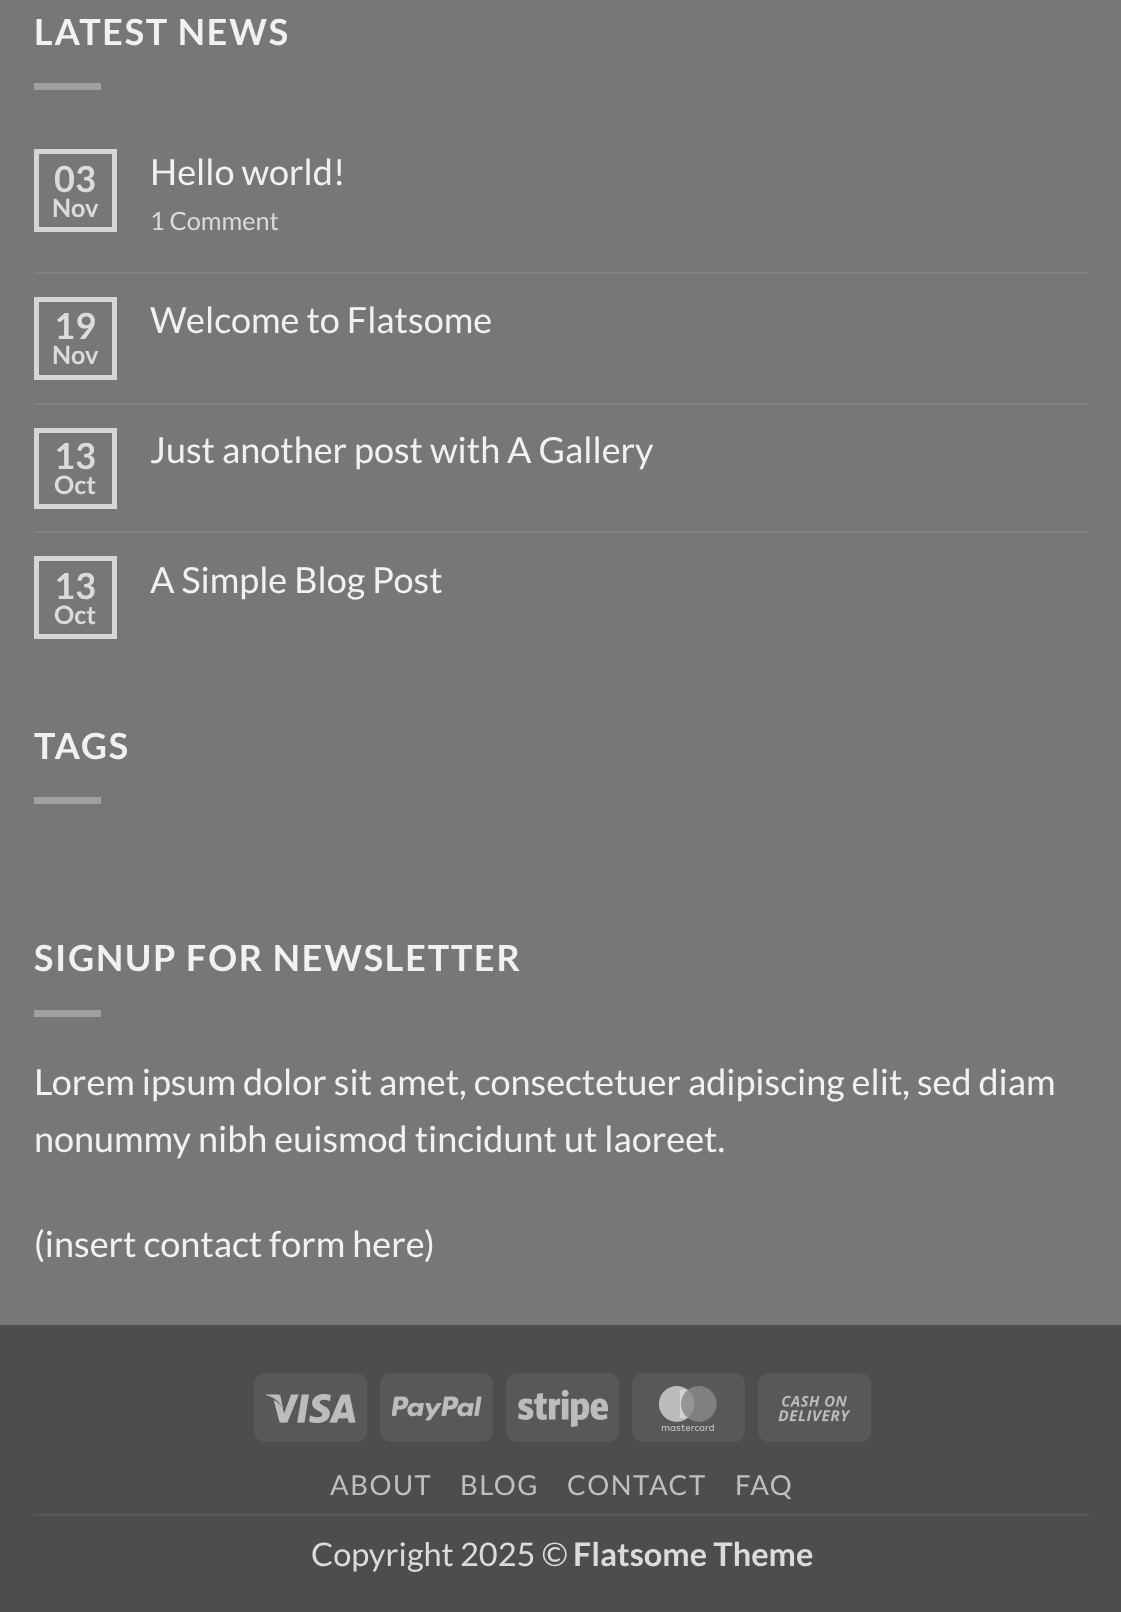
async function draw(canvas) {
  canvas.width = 1121;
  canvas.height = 1612;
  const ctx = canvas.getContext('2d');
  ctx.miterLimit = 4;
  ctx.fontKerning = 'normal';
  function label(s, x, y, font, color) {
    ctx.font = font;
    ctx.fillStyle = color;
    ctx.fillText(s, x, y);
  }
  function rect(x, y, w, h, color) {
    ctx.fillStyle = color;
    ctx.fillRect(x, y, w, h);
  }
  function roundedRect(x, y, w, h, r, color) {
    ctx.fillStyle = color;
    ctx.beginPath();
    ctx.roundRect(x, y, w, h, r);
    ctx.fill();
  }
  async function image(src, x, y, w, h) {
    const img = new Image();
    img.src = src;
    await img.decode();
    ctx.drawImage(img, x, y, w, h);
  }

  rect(0, 0, 1121, 1612, '#777');
  ctx.letterSpacing = '1.8px';
  label('LATEST NEWS', 34, 45, 'bold 36px Lato', '#f1f1f1');
  rect(34, 83, 67, 7, '#a0a0a0');
  ctx.strokeStyle = '#d6d6d6';
  ctx.lineWidth = 5;
  ctx.strokeRect(36.5, 151.5, 78, 78);
  ctx.letterSpacing = '0px';
  label('03', 54, 192, 'bold 36px Lato', '#dbdbdb');
  label('Nov', 52, 217, 'bold 25.25px Lato', '#dbdbdb');
  label('Hello world!', 150, 185, '36px Lato', '#f1f1f1');
  label('1 Comment', 150, 230, '25.25px Lato', '#dbdbdb');
  rect(34, 272, 1055, 2, '#828282');
  ctx.strokeRect(36.5, 299.5, 78, 78);
  label('19', 54, 339, 'bold 36px Lato', '#dbdbdb');
  label('Nov', 52, 364, 'bold 25.25px Lato', '#dbdbdb');
  label('Welcome to Flatsome', 150, 333, '36px Lato', '#f1f1f1');
  rect(34, 403, 1055, 2, '#828282');
  ctx.strokeRect(36.5, 430.5, 78, 76);
  label('13', 54, 469, 'bold 36px Lato', '#dbdbdb');
  label('Oct', 54, 494, 'bold 25.25px Lato', '#dbdbdb');
  label('Just another post with A Gallery', 150, 463, '36px Lato', '#f1f1f1');
  rect(34, 531, 1055, 2, '#828282');
  ctx.strokeRect(36.5, 558.5, 78, 78);
  label('13', 54, 599, 'bold 36px Lato', '#dbdbdb');
  label('Oct', 54, 624, 'bold 25.25px Lato', '#dbdbdb');
  label('A Simple Blog Post', 150, 593, '36px Lato', '#f1f1f1');
  ctx.letterSpacing = '1.8px';
  label('TAGS', 34, 759, 'bold 36px Lato', '#f1f1f1');
  rect(34, 797, 67, 7, '#a0a0a0');
  label('SIGNUP FOR NEWSLETTER', 34, 971, 'bold 36px Lato', '#f1f1f1');
  rect(34, 1010, 67, 7, '#a0a0a0');
  ctx.letterSpacing = '0px';
  label('Lorem ipsum dolor sit amet, consectetuer adipiscing elit, sed diam', 34, 1095, '36px Lato', '#f1f1f1');
  label('nonummy nibh euismod tincidunt ut laoreet.', 34, 1152, '36px Lato', '#f1f1f1');
  label('(insert contact form here)', 34, 1257, '36px Lato', '#f1f1f1');
  rect(0, 1325, 1121, 287, '#4d4d4d');
  roundedRect(254, 1373, 113, 69, 11, '#585858');
  await image('assets/img1.png', 266, 1394, 90, 29);
  roundedRect(380, 1373, 113, 69, 11, '#585858');
  await image('assets/img2.png', 392, 1396, 90, 25);
  roundedRect(506, 1373, 113, 69, 11, '#585858');
  await image('assets/img3.png', 518, 1389, 90, 39);
  roundedRect(632, 1373, 113, 69, 11, '#585858');
  await image('assets/img4.png', 659, 1386, 58, 45);
  roundedRect(758, 1373, 113, 69, 11, '#585858');
  await image('assets/img5.png', 778, 1395, 73, 27);
  rect(34, 1514, 1055, 2, '#585858');
  ctx.letterSpacing = '1.5px';
  label('ABOUT', 330, 1495, '27.5px Lato', '#bfbfbf');
  label('BLOG', 460, 1495, '27.5px Lato', '#bfbfbf');
  label('CONTACT', 567, 1495, '27.5px Lato', '#bfbfbf');
  label('FAQ', 735, 1495, '27.5px Lato', '#bfbfbf');
  ctx.letterSpacing = '0px';
  label('Copyright 2025 ©', 311, 1566, '32.5px Lato', '#dbdbdb');
  label('Flatsome Theme', 573, 1566, 'bold 32.5px Lato', '#dbdbdb');
}

draw(document.querySelector('canvas'));
